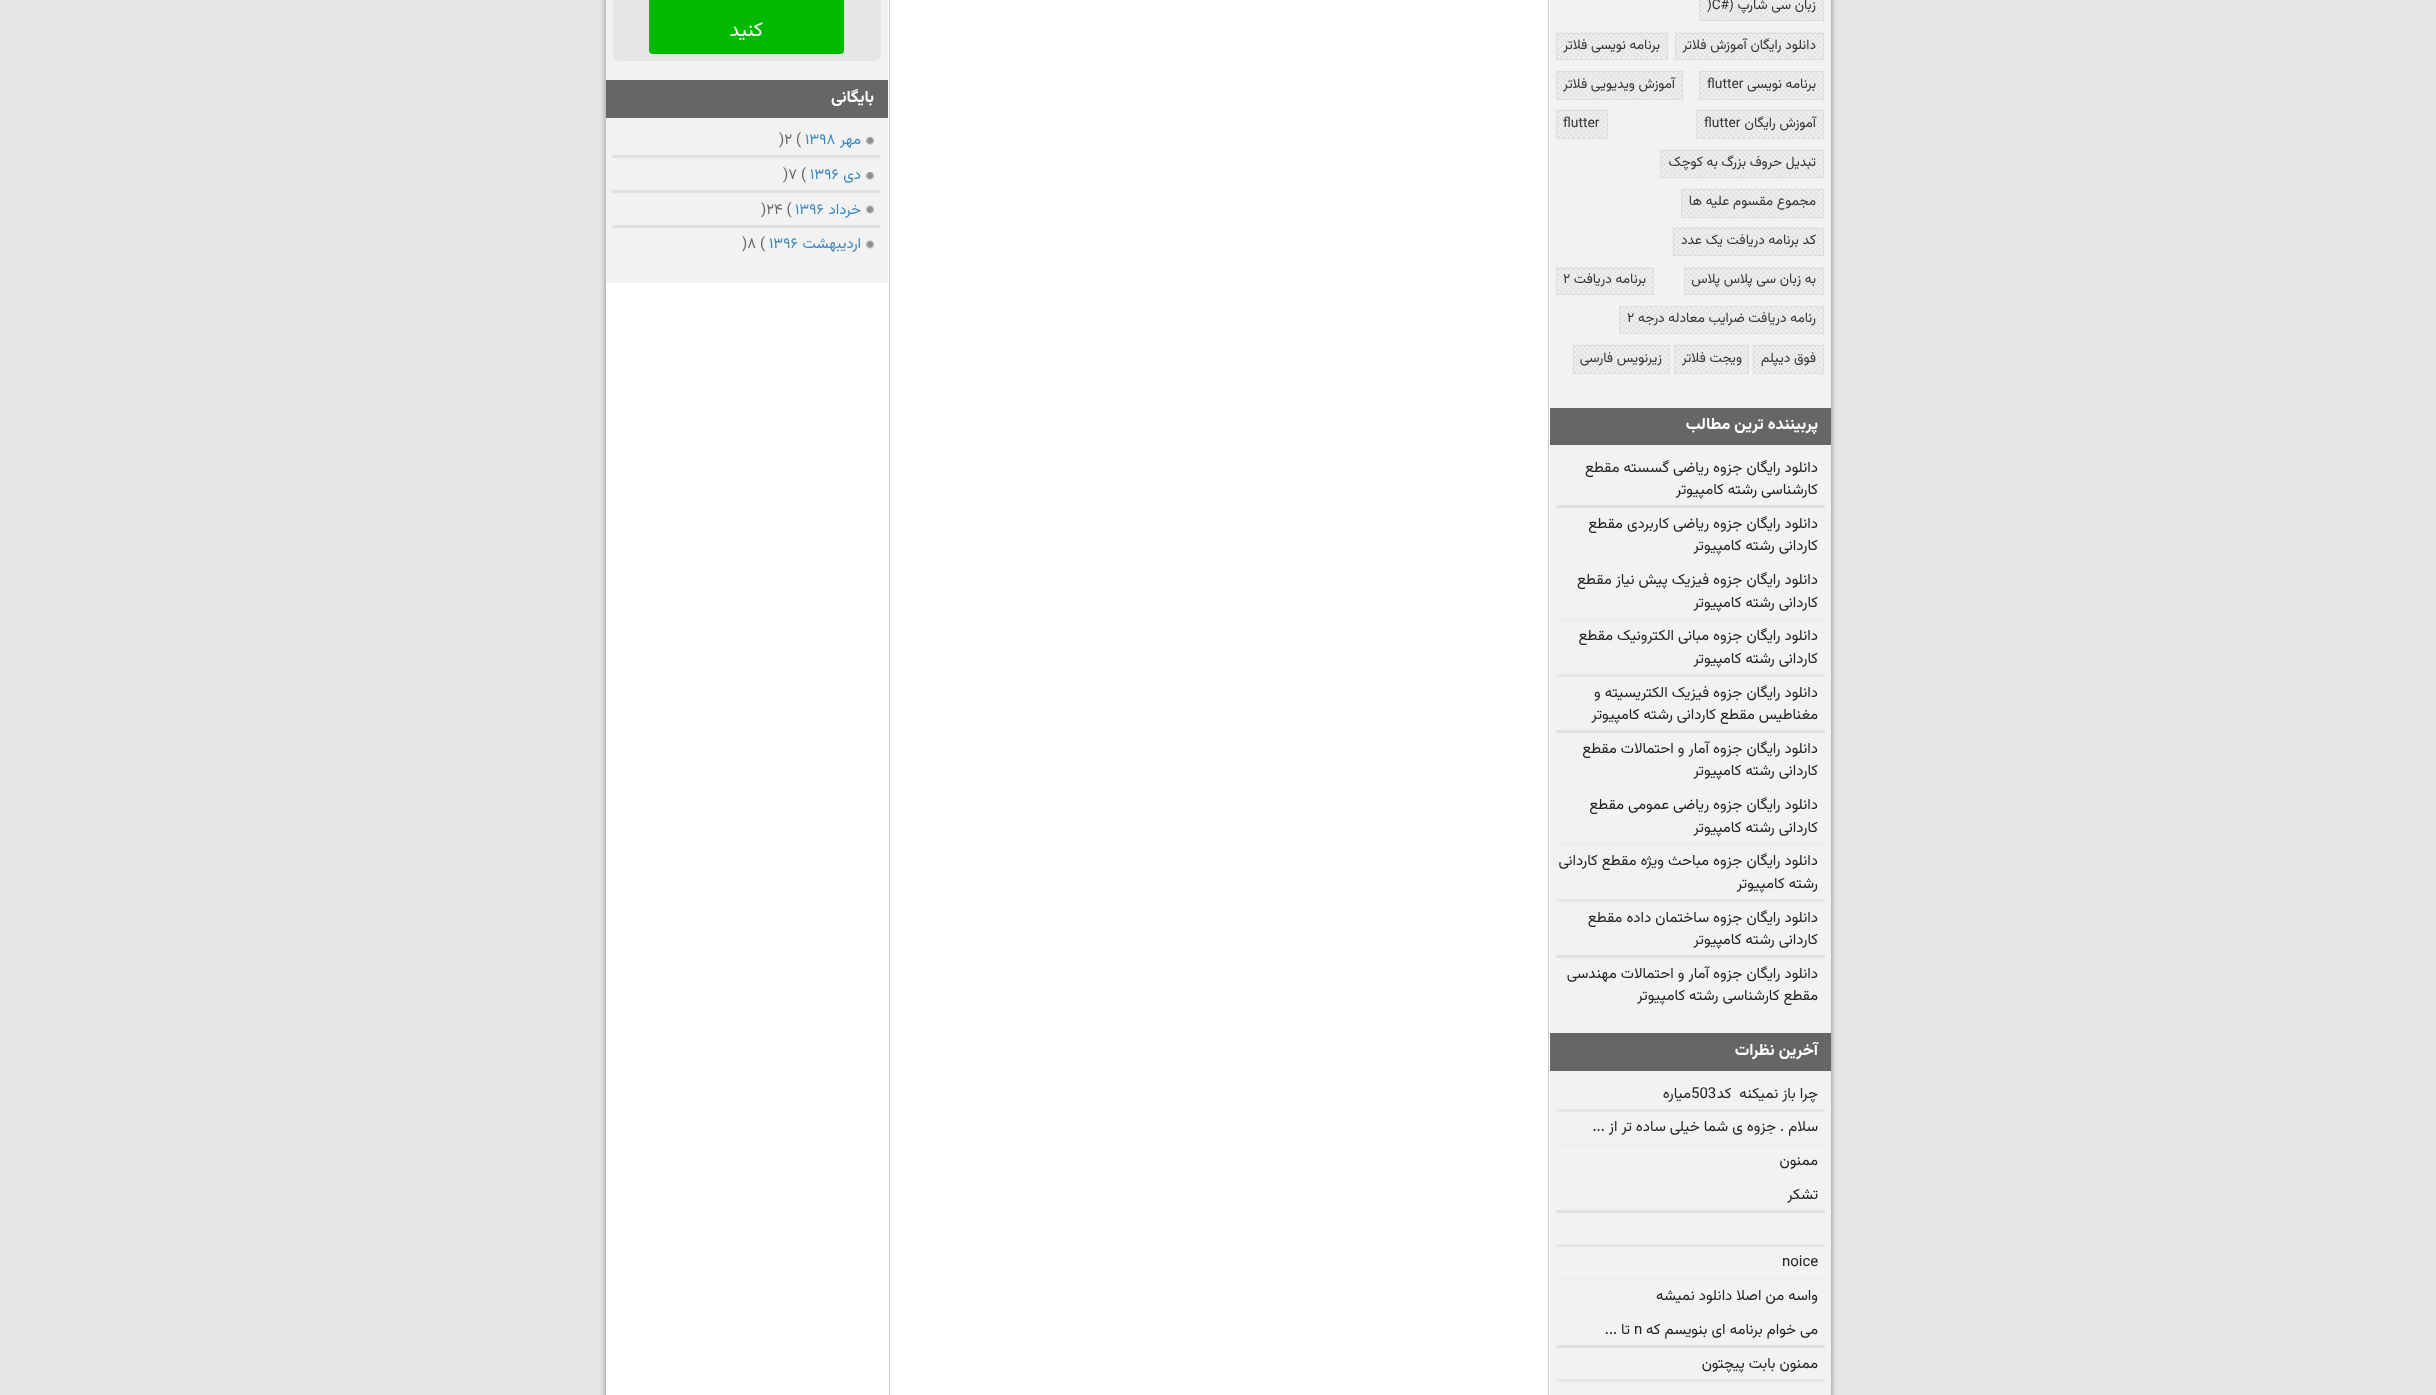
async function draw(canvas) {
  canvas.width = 2436;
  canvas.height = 1395;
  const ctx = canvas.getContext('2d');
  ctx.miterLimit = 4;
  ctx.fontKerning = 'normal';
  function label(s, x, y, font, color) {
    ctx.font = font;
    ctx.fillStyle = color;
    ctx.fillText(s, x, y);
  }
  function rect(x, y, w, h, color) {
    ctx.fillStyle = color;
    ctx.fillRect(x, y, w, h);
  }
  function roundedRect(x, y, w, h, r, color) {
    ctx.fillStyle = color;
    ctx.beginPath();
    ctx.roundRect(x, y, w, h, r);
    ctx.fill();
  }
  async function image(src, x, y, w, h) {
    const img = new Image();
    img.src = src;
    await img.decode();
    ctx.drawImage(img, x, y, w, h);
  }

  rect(0, 0, 2436, 1395, '#e6e6e6');
  ctx.fillStyle = '#888';
  ctx.filter = 'blur(3px)';
  ctx.beginPath();
  ctx.rect(606, -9, 1225, 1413);
  ctx.fill();
  ctx.filter = 'none';
  rect(606, 0, 944, 1395, '#fff');
  rect(1550, 0, 281, 1395, '#f2f2f2');
  await image('assets/img1.png', 1700, 0, 123, 20);
  ctx.strokeStyle = '#ddd';
  ctx.strokeRect(1699.5, -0.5, 124, 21);
  ctx.direction = 'rtl';
  label('زبان سی شارپ (#', 1816, 9, '13.75px Vazirmatn', '#333');
  ctx.direction = 'ltr';
  label(')C', 1707, 9, '13.75px Vazirmatn', '#333');
  await image('assets/img2.png', 1675, 32, 149, 27);
  ctx.strokeRect(1675.5, 33.5, 148, 26);
  ctx.direction = 'rtl';
  label('دانلود رایگان آموزش فلاتر', 1816, 49, '13.75px Vazirmatn', '#333');
  await image('assets/img3.png', 1556, 32, 112, 27);
  ctx.strokeRect(1556.5, 33.5, 111, 26);
  label('برنامه نویسی فلاتر', 1660, 49, '13.75px Vazirmatn', '#333');
  await image('assets/img4.png', 1700, 72, 123, 27);
  ctx.strokeRect(1699.5, 71.5, 124, 28);
  label('برنامه نویسی', 1816, 88, '13.75px Vazirmatn', '#333');
  ctx.direction = 'ltr';
  label('flutter', 1707, 88, '13.75px Vazirmatn', '#333');
  await image('assets/img5.png', 1557, 72, 125, 27);
  ctx.strokeRect(1556.5, 71.5, 126, 28);
  ctx.direction = 'rtl';
  label('آموزش ویدیویی فلاتر', 1675, 88, '13.75px Vazirmatn', '#333');
  await image('assets/img6.png', 1696, 109, 128, 29);
  ctx.strokeRect(1696.5, 110.5, 127, 28);
  label('آموزش رایگان', 1816, 127, '13.75px Vazirmatn', '#333');
  ctx.direction = 'ltr';
  label('flutter', 1704, 127, '13.75px Vazirmatn', '#333');
  await image('assets/img7.png', 1556, 109, 51, 29);
  ctx.strokeRect(1556.5, 110.5, 51, 28);
  label('flutter', 1563, 127, '13.75px Vazirmatn', '#333');
  await image('assets/img8.png', 1660, 149, 164, 28);
  ctx.strokeRect(1660.5, 150.5, 163, 27);
  ctx.direction = 'rtl';
  label('تبدیل حروف بزرگ به کوچک', 1816, 166, '13.75px Vazirmatn', '#333');
  await image('assets/img9.png', 1681, 188, 143, 29);
  ctx.strokeRect(1681.5, 189.5, 142, 28);
  label('مجموع مقسوم علیه ها', 1816, 205, '13.75px Vazirmatn', '#333');
  await image('assets/img10.png', 1672, 227, 152, 29);
  ctx.strokeRect(1673.5, 228.5, 150, 27);
  label('کد برنامه دریافت یک عدد', 1816, 244, '13.75px Vazirmatn', '#333');
  await image('assets/img11.png', 1684, 267, 140, 27);
  ctx.strokeRect(1684.5, 268.5, 139, 26);
  label('به زبان سی پلاس پلاس', 1816, 283, '13.75px Vazirmatn', '#333');
  await image('assets/img12.png', 1556, 267, 98, 27);
  ctx.strokeRect(1556.5, 268.5, 97, 26);
  label('برنامه دریافت', 1646, 283, '13.75px Vazirmatn', '#333');
  ctx.direction = 'ltr';
  label('۲', 1563, 283, '13.75px Vazirmatn', '#333');
  await image('assets/img13.png', 1620, 307, 203, 26);
  ctx.strokeRect(1619.5, 306.5, 204, 27);
  ctx.direction = 'rtl';
  label('رنامه دریافت ضرایب معادله درجه', 1816, 322, '13.75px Vazirmatn', '#333');
  ctx.direction = 'ltr';
  label('۲', 1627, 322, '13.75px Vazirmatn', '#333');
  await image('assets/img14.png', 1752, 344, 72, 29);
  ctx.strokeRect(1753.5, 345.5, 70, 28);
  ctx.direction = 'rtl';
  label('فوق دیپلم', 1816, 362, '13.75px Vazirmatn', '#333');
  await image('assets/img15.png', 1674, 344, 75, 29);
  ctx.strokeRect(1674.5, 345.5, 74, 28);
  label('ویجت فلاتر', 1742, 362, '13.75px Vazirmatn', '#333');
  await image('assets/img16.png', 1572, 344, 98, 29);
  ctx.strokeRect(1573.5, 345.5, 96, 28);
  label('زیرنویس فارسی', 1662, 362, '13.75px Vazirmatn', '#333');
  rect(1550, 408, 281, 37, '#666');
  label('پربیننده ترین مطالب', 1818, 429, 'bold 16.25px Vazirmatn', '#fff');
  rect(1556, 505, 269, 3, '#e0e0e0');
  label('دانلود رایگان جزوه ریاضی گسسته مقطع', 1818, 472, '15px Vazirmatn', '#222');
  label('کارشناسی رشته کامپیوتر', 1818, 494, '15px Vazirmatn', '#222');
  label('دانلود رایگان جزوه ریاضی کاربردی مقطع', 1818, 528, '15px Vazirmatn', '#222');
  label('کاردانی رشته کامپیوتر', 1818, 550, '15px Vazirmatn', '#222');
  rect(1556, 618, 269, 3, '#eee');
  label('دانلود رایگان جزوه فیزیک پیش نیاز مقطع', 1818, 584, '15px Vazirmatn', '#222');
  label('کاردانی رشته کامپیوتر', 1818, 607, '15px Vazirmatn', '#222');
  rect(1556, 674, 269, 3, '#e6e6e6');
  label('دانلود رایگان جزوه مبانی الکترونیک مقطع', 1818, 640, '15px Vazirmatn', '#222');
  label('کاردانی رشته کامپیوتر', 1818, 663, '15px Vazirmatn', '#222');
  rect(1556, 730, 269, 3, '#e0e0e0');
  label('دانلود رایگان جزوه فیزیک الکتریسیته و', 1818, 697, '15px Vazirmatn', '#222');
  label('مغناطیس مقطع کاردانی رشته کامپیوتر', 1818, 719, '15px Vazirmatn', '#222');
  label('دانلود رایگان جزوه آمار و احتمالات مقطع', 1818, 753, '15px Vazirmatn', '#222');
  label('کاردانی رشته کامپیوتر', 1818, 775, '15px Vazirmatn', '#222');
  rect(1556, 843, 269, 3, '#eee');
  label('دانلود رایگان جزوه ریاضی عمومی مقطع', 1818, 809, '15px Vazirmatn', '#222');
  label('کاردانی رشته کامپیوتر', 1818, 832, '15px Vazirmatn', '#222');
  rect(1556, 899, 269, 3, '#e6e6e6');
  label('دانلود رایگان جزوه مباحث ویژه مقطع کاردانی', 1818, 865, '15px Vazirmatn', '#222');
  label('رشته کامپیوتر', 1818, 888, '15px Vazirmatn', '#222');
  rect(1556, 955, 269, 3, '#e0e0e0');
  label('دانلود رایگان جزوه ساختمان داده مقطع', 1818, 922, '15px Vazirmatn', '#222');
  label('کاردانی رشته کامپیوتر', 1818, 944, '15px Vazirmatn', '#222');
  label('دانلود رایگان جزوه آمار و احتمالات مهندسی', 1818, 978, '15px Vazirmatn', '#222');
  label('مقطع کارشناسی رشته کامپیوتر', 1818, 1000, '15px Vazirmatn', '#222');
  rect(1550, 1033, 281, 38, '#666');
  label('آخرین نظرات', 1818, 1055, 'bold 16.25px Vazirmatn', '#fff');
  rect(1556, 1109, 269, 3, '#e6e6e6');
  label('چرا باز نمیکنه  کد', 1818, 1098, '15px Vazirmatn', '#222');
  ctx.direction = 'ltr';
  label('503', 1691, 1098, '15px Vazirmatn', '#222');
  ctx.direction = 'rtl';
  label('میاره', 1691, 1098, '15px Vazirmatn', '#222');
  rect(1556, 1143, 269, 3, '#eee');
  label('سلام . جزوه ی شما خیلی ساده تر از ...', 1818, 1131, '15px Vazirmatn', '#222');
  label('ممنون', 1818, 1165, '15px Vazirmatn', '#222');
  rect(1556, 1210, 269, 3, '#e0e0e0');
  label('تشکر', 1818, 1199, '15px Vazirmatn', '#222');
  rect(1556, 1244, 269, 3, '#e6e6e6');
  rect(1556, 1278, 269, 3, '#eee');
  ctx.direction = 'ltr';
  label('noice', 1782, 1266, '15px Vazirmatn', '#222');
  ctx.direction = 'rtl';
  label('واسه من اصلا دانلود نمیشه', 1818, 1300, '15px Vazirmatn', '#222');
  rect(1556, 1345, 269, 3, '#e0e0e0');
  label('می خوام برنامه ای بنویسم که', 1818, 1334, '15px Vazirmatn', '#222');
  ctx.direction = 'ltr';
  label('n', 1634, 1334, '15px Vazirmatn', '#222');
  ctx.direction = 'rtl';
  label('تا ...', 1630, 1334, '15px Vazirmatn', '#222');
  rect(1556, 1379, 269, 3, '#e6e6e6');
  label('ممنون بابت پیچتون', 1818, 1368, '15px Vazirmatn', '#222');
  rect(1548, 0, 1, 1395, '#ccc');
  rect(889, 0, 1, 1395, '#ccc');
  rect(606, 0, 282, 283, '#f2f2f2');
  roundedRect(613, -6, 268, 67, 6, '#e6e6e6');
  roundedRect(649, -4, 195, 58, 4, '#01ba00');
  label('کنید', 763, 36, '20px Vazirmatn', '#fff');
  rect(606, 80, 282, 38, '#666');
  label('بایگانی', 874, 102, 'bold 16.25px Vazirmatn', '#fff');
  rect(612, 155, 268, 3, '#e0e0e0');
  await image('assets/img17.png', 866, 137, 8, 8);
  label('مهر', 861, 144, '15px Vazirmatn', '#3b86bd');
  ctx.direction = 'ltr';
  label('۱۳۹۸', 805, 144, '15px Vazirmatn', '#3b86bd');
  label(')۲ (', 779, 144, '15px Vazirmatn', '#666');
  rect(612, 190, 268, 3, '#e0e0e0');
  await image('assets/img17.png', 866, 172, 8, 8);
  ctx.direction = 'rtl';
  label('دی', 861, 179, '15px Vazirmatn', '#3b86bd');
  ctx.direction = 'ltr';
  label('۱۳۹۶', 810, 179, '15px Vazirmatn', '#3b86bd');
  label(')۷ (', 783, 179, '15px Vazirmatn', '#666');
  rect(612, 225, 268, 3, '#e0e0e0');
  await image('assets/img18.png', 866, 205, 8, 9);
  ctx.direction = 'rtl';
  label('خرداد', 861, 214, '15px Vazirmatn', '#3b86bd');
  ctx.direction = 'ltr';
  label('۱۳۹۶', 795, 214, '15px Vazirmatn', '#3b86bd');
  label(')۲۴ (', 761, 214, '15px Vazirmatn', '#666');
  await image('assets/img18.png', 866, 240, 8, 9);
  ctx.direction = 'rtl';
  label('ارديبهشت', 861, 248, '15px Vazirmatn', '#3b86bd');
  ctx.direction = 'ltr';
  label('۱۳۹۶', 769, 248, '15px Vazirmatn', '#3b86bd');
  label(')۸ (', 742, 248, '15px Vazirmatn', '#666');
}

draw(document.querySelector('canvas'));
